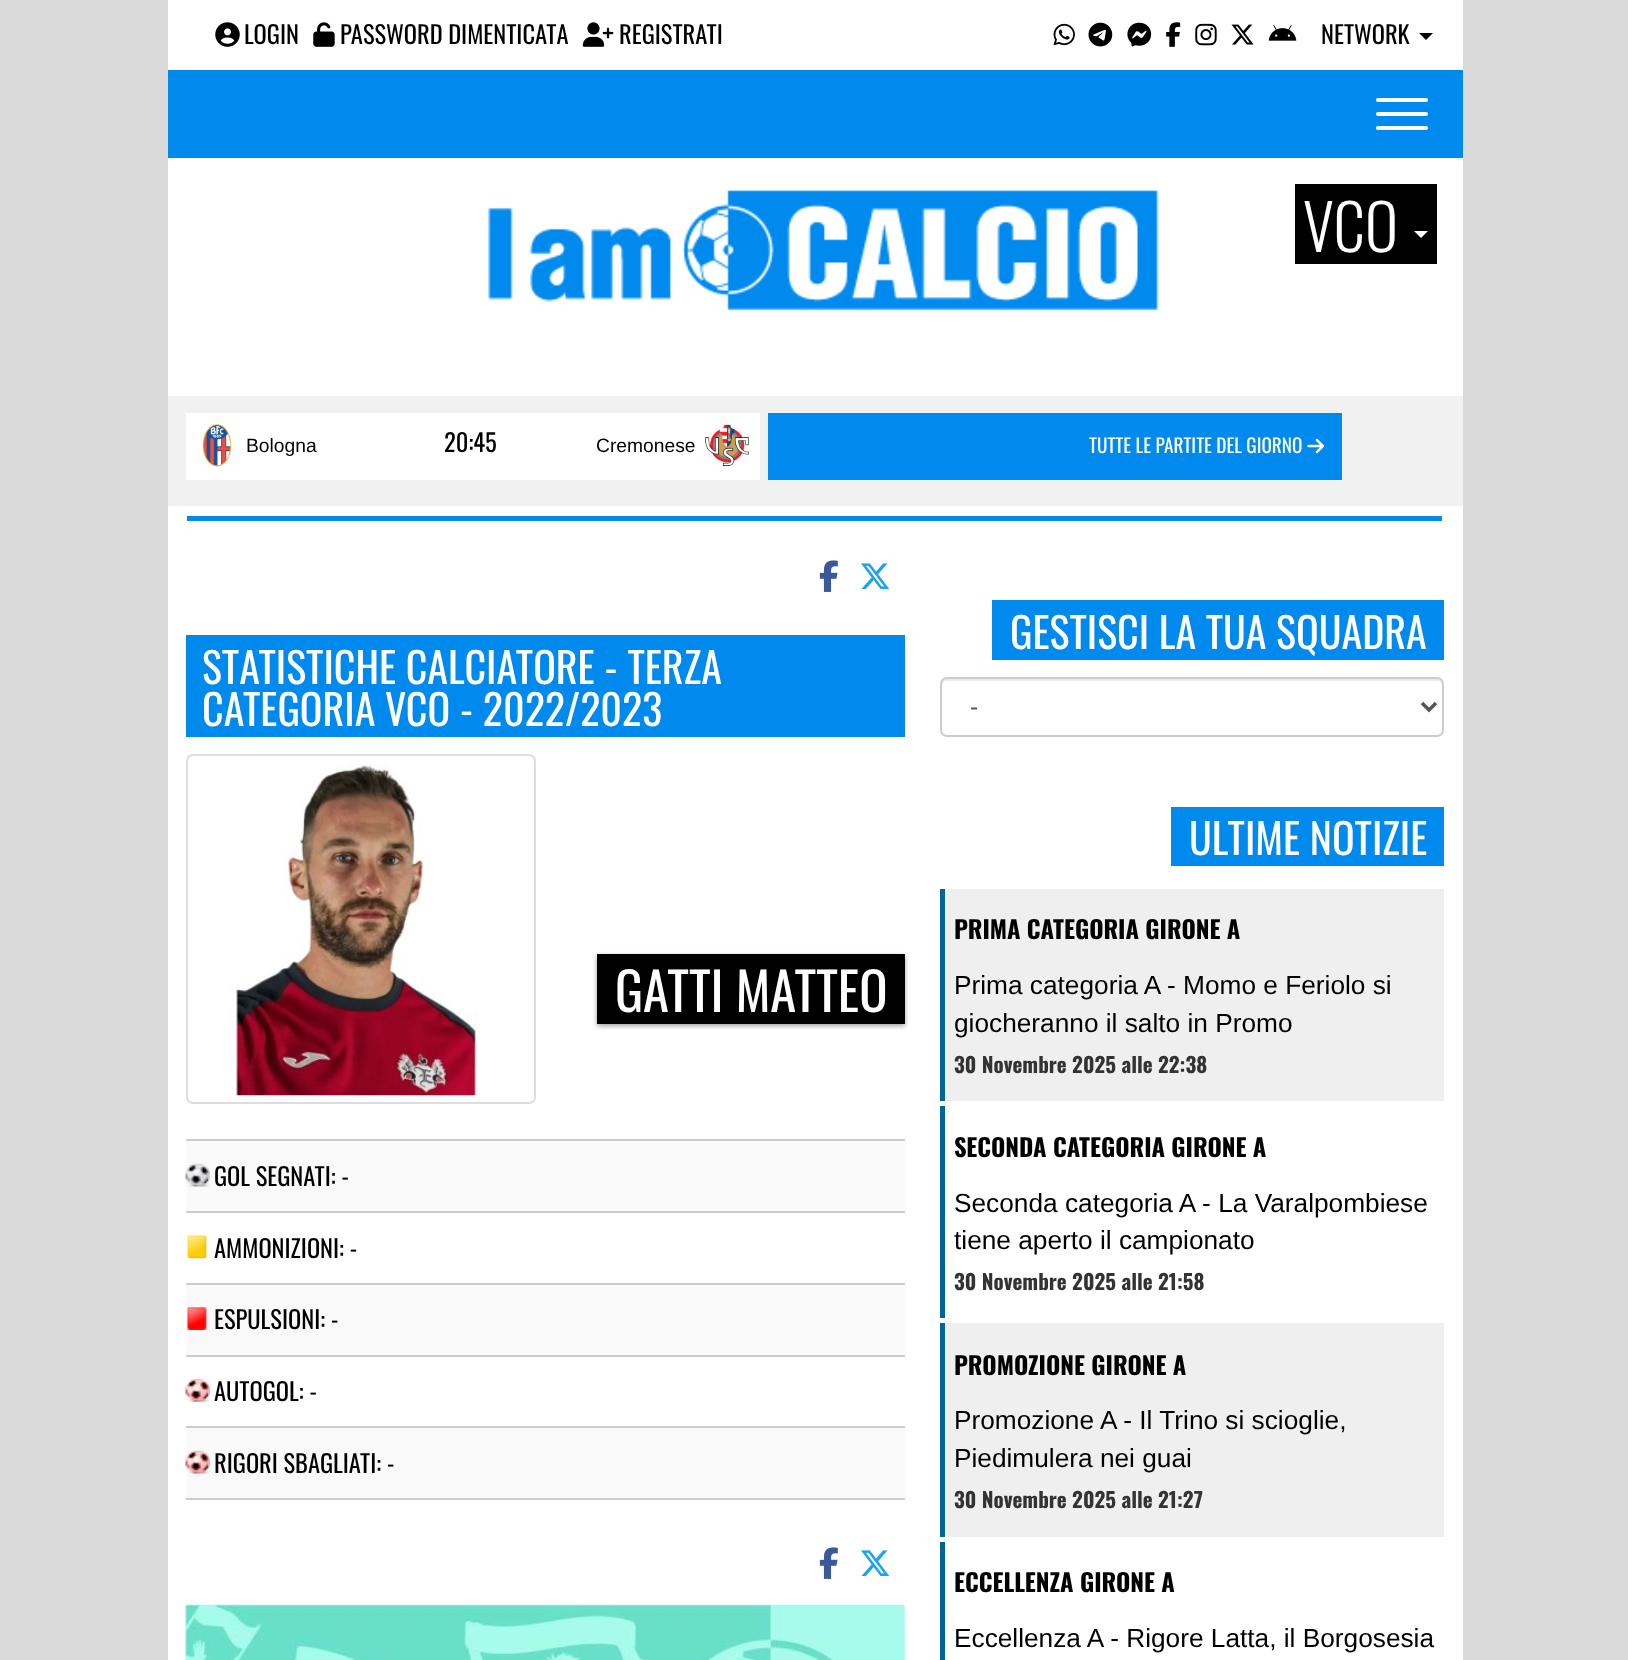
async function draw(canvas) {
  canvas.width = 1628;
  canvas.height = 1660;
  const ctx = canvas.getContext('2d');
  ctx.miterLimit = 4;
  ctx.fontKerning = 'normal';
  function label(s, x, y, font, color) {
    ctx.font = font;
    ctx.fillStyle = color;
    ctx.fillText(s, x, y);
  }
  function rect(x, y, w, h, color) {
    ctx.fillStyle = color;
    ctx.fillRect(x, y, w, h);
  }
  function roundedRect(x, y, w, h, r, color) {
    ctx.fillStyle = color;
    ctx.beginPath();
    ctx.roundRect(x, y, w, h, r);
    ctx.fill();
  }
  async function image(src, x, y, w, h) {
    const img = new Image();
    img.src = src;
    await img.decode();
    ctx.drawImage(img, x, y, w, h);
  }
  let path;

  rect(0, 0, 1628, 1660, '#dadada');
  rect(168, 0, 1295, 1660, '#fff');
  await image('assets/img1.png', 215, 22, 25, 25);
  label('LOGIN', 244, 44, '24.5px Oswald', '#000');
  await image('assets/img2.png', 313, 22, 22, 25);
  label('PASSWORD DIMENTICATA', 340, 44, '24.5px Oswald', '#000');
  await image('assets/img3.png', 582, 22, 32, 25);
  label('REGISTRATI', 619, 44, '24.5px Oswald', '#000');
  await image('assets/img4.png', 1053, 23, 22, 23);
  await image('assets/img5.png', 1088, 22, 25, 25);
  await image('assets/img6.png', 1127, 22, 25, 25);
  await image('assets/img7.png', 1166, 22, 15, 25);
  await image('assets/img8.png', 1195, 23, 22, 23);
  await image('assets/img9.png', 1231, 24, 23, 21);
  await image('assets/img10.png', 1268, 25, 29, 16);
  label('NETWORK', 1321, 44, '24.5px Oswald', '#000');
  path = new Path2D('M1419 33H1433L1426 40Z');
  ctx.fill(path);
  rect(168, 70, 1295, 88, '#008aed');
  roundedRect(1376, 98, 52, 4, 2, '#fff');
  roundedRect(1376, 112, 52, 4, 2, '#fff');
  roundedRect(1376, 126, 52, 4, 2, '#fff');
  await image('assets/img11.png', 487, 190, 672, 121);
  rect(1295, 184, 142, 80, '#000');
  label('VCO', 1303, 252, '300 63px Oswald', '#fff');
  path = new Path2D('M1414 231H1428L1421 238Z');
  ctx.fill(path);
  rect(168, 396, 1295, 110, '#f1f1f1');
  rect(186, 413, 574, 67, '#fff');
  await image('assets/img12.png', 202, 424, 30, 43);
  label('Bologna', 246, 452, '19.25px Liberation Sans', '#000');
  label('20:45', 444, 452, '24.5px Oswald', '#000');
  await image('assets/img13.png', 705, 424, 44, 42);
  label('Cremonese', 596, 452, '19.25px Liberation Sans', '#000');
  rect(768, 413, 574, 67, '#008aed');
  label('TUTTE LE PARTITE DEL GIORNO', 1089, 453, '19.25px Oswald', '#fff');
  await image('assets/img14.png', 1307, 438, 18, 16);
  rect(187, 516, 1255, 5, '#008aed');
  await image('assets/img15.png', 819, 560, 19, 32);
  await image('assets/img16.png', 861, 563, 29, 26);
  rect(186, 635, 719, 102, '#008aed');
  label('STATISTICHE CALCIATORE - TERZA', 202, 684, '42px Oswald', '#fff');
  label('CATEGORIA VCO - 2022/2023', 202, 726, '42px Oswald', '#fff');
  ctx.beginPath();
  ctx.roundRect(187, 755, 348, 348, 6);
  ctx.strokeStyle = '#ddd';
  ctx.lineWidth = 2;
  ctx.stroke();
  await image('assets/img17.png', 230, 763, 248, 333);
  ctx.fillStyle = '#3f3f3f80';
  ctx.filter = 'blur(2.5px)';
  ctx.beginPath();
  ctx.rect(597, 956, 308, 70);
  ctx.fill();
  ctx.filter = 'none';
  rect(597, 954, 308, 70, '#000');
  label('GATTI MATTEO', 615, 1012, '52.5px Oswald', '#fff');
  rect(186, 1141, 719, 70, '#f9f9f9');
  await image('assets/img18.png', 185, 1163, 25, 24);
  rect(186, 1139, 719, 2, '#ccc');
  rect(186, 1211, 719, 2, '#ccc');
  label('GOL SEGNATI: -', 214, 1186, '24.5px Oswald', '#000');
  await image('assets/img19.png', 187, 1235, 20, 24);
  rect(186, 1283, 719, 2, '#ccc');
  label('AMMONIZIONI: -', 214, 1258, '24.5px Oswald', '#000');
  rect(186, 1285, 719, 70, '#f9f9f9');
  await image('assets/img20.png', 187, 1307, 20, 23);
  rect(186, 1355, 719, 2, '#ccc');
  label('ESPULSIONI: -', 214, 1329, '24.5px Oswald', '#000');
  await image('assets/img21.png', 185, 1379, 25, 23);
  rect(186, 1426, 719, 2, '#ccc');
  label('AUTOGOL: -', 214, 1401, '24.5px Oswald', '#000');
  rect(186, 1428, 719, 70, '#f9f9f9');
  await image('assets/img22.png', 185, 1450, 25, 24);
  rect(186, 1498, 719, 2, '#ccc');
  label('RIGORI SBAGLIATI: -', 214, 1473, '24.5px Oswald', '#000');
  await image('assets/img15.png', 819, 1547, 19, 32);
  await image('assets/img16.png', 861, 1550, 29, 26);
  await image('assets/img23.png', 185, 1604, 720, 56);
  rect(992, 600, 452, 60, '#008aed');
  label('GESTISCI LA TUA SQUADRA', 1010, 649, '42px Oswald', '#fff');
  ctx.fillStyle = '#ececec';
  path = new Path2D('M947 681H1437C1440 681 1442 683 1442 686V684C1442 681 1440 679 1437 679H947C944 679 942 681 942 684V686C942 683 944 681 947 681Z');
  ctx.fill(path);
  ctx.beginPath();
  ctx.roundRect(941, 678, 502, 58, 6);
  ctx.strokeStyle = '#ccc';
  ctx.stroke();
  path = new Path2D('M1422 703L1429 710L1436 703');
  ctx.strokeStyle = '#555';
  ctx.lineWidth = 3.5;
  ctx.stroke(path);
  label('-', 970, 715, '24.5px Liberation Sans', '#555');
  rect(1171, 807, 273, 59, '#008aed');
  label('ULTIME NOTIZIE', 1189, 855, '42px Oswald', '#fff');
  rect(945, 889, 499, 212, '#efefef');
  rect(940, 889, 5, 212, '#006599');
  label('PRIMA CATEGORIA GIRONE A', 954, 939, 'bold 24.5px Oswald', '#000');
  label('Prima categoria A - Momo e Feriolo si', 954, 994, '26.25px Liberation Sans', '#000');
  label('giocheranno il salto in Promo', 954, 1032, '26.25px Liberation Sans', '#000');
  label('30 Novembre 2025 alle 22:38', 954, 1073, 'bold 21px Oswald', '#333');
  rect(940, 1106, 5, 212, '#006599');
  label('SECONDA CATEGORIA GIRONE A', 954, 1157, 'bold 24.5px Oswald', '#000');
  label('Seconda categoria A - La Varalpombiese', 954, 1212, '26.25px Liberation Sans', '#000');
  label('tiene aperto il campionato', 954, 1249, '26.25px Liberation Sans', '#000');
  label('30 Novembre 2025 alle 21:58', 954, 1290, 'bold 21px Oswald', '#333');
  rect(945, 1323, 499, 214, '#efefef');
  rect(940, 1323, 5, 214, '#006599');
  label('PROMOZIONE GIRONE A', 954, 1375, 'bold 24.5px Oswald', '#000');
  label('Promozione A - Il Trino si scioglie,', 954, 1429, '26.25px Liberation Sans', '#000');
  label('Piedimulera nei guai', 954, 1467, '26.25px Liberation Sans', '#000');
  label('30 Novembre 2025 alle 21:27', 954, 1508, 'bold 21px Oswald', '#333');
  rect(940, 1542, 5, 118, '#006599');
  label('ECCELLENZA GIRONE A', 954, 1592, 'bold 24.5px Oswald', '#000');
  label('Eccellenza A - Rigore Latta, il Borgosesia', 954, 1647, '26.25px Liberation Sans', '#000');
}

draw(document.querySelector('canvas'));
